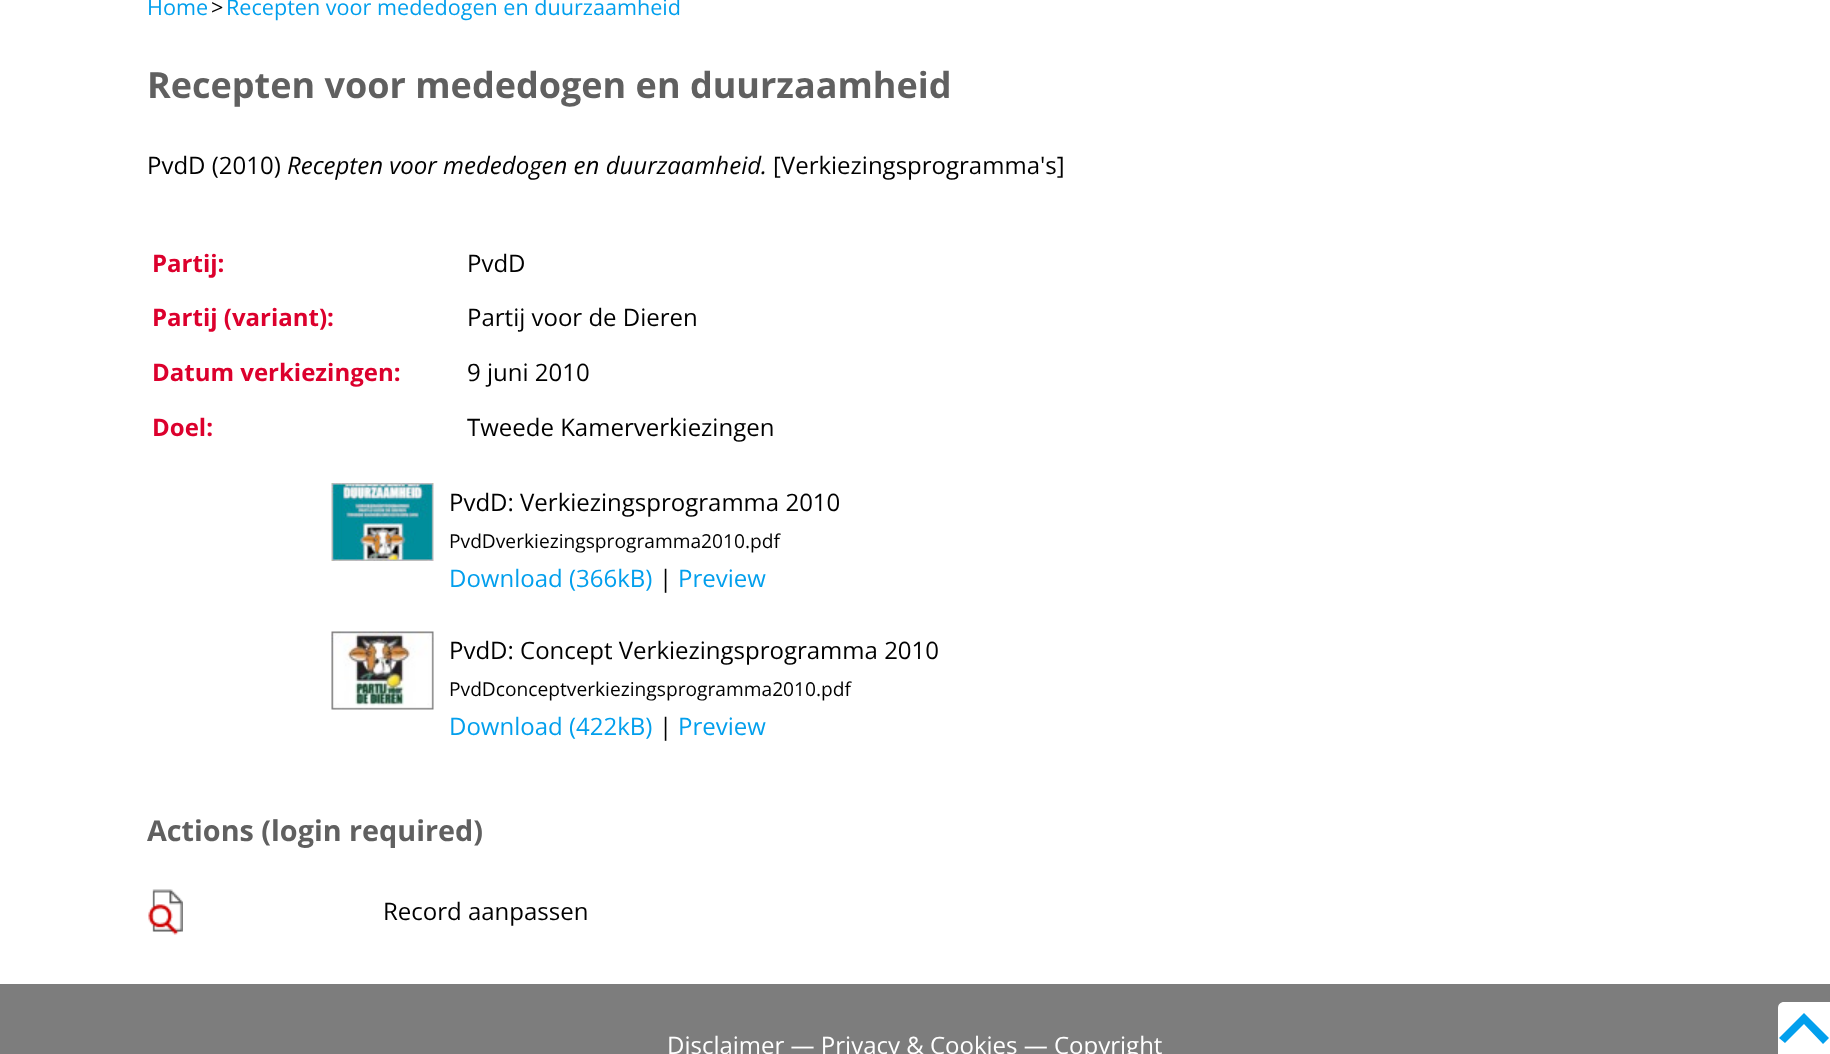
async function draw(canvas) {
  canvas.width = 1830;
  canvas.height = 1054;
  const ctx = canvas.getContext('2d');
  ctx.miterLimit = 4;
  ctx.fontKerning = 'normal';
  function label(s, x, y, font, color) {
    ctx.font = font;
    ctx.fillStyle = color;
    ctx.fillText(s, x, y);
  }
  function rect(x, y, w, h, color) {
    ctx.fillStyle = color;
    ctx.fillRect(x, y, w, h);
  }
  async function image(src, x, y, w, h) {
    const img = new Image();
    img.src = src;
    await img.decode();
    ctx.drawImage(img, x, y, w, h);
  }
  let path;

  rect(0, 0, 1830, 1054, '#fff');
  label('Home', 147, 15, '21.6px Open Sans', '#029fed');
  label('>', 211, 15, '21.6px Open Sans', '#000');
  label('Recepten voor mededogen en duurzaamheid', 226, 15, '21.6px Open Sans', '#029fed');
  label('Recepten voor mededogen en duurzaamheid', 147, 98, 'bold 36px Open Sans', '#606060');
  label('PvdD (2010)', 147, 174, '24px Open Sans', '#000');
  label('Recepten voor mededogen en duurzaamheid.', 287, 174, 'italic 24px Open Sans', '#000');
  label('[Verkiezingsprogramma\'s]', 773, 174, '24px Open Sans', '#000');
  label('Partij:', 152, 272, 'bold 24px Open Sans', '#dc002d');
  label('PvdD', 467, 272, '24px Open Sans', '#000');
  label('Partij (variant):', 152, 326, 'bold 24px Open Sans', '#dc002d');
  label('Partij voor de Dieren', 467, 326, '24px Open Sans', '#000');
  label('Datum verkiezingen:', 152, 381, 'bold 24px Open Sans', '#dc002d');
  label('9 juni 2010', 467, 381, '24px Open Sans', '#000');
  label('Doel:', 152, 436, 'bold 24px Open Sans', '#dc002d');
  label('Tweede Kamerverkiezingen', 467, 436, '24px Open Sans', '#000');
  await image('assets/img1.png', 331, 483, 103, 78);
  label('PvdD: Verkiezingsprogramma 2010', 449, 511, '24px Open Sans', '#000');
  label('PvdDverkiezingsprogramma2010.pdf', 449, 548, '19.2px Open Sans', '#000');
  label('Download (366kB)', 449, 587, '24px Open Sans', '#029fed');
  label('|', 659, 587, '24px Open Sans', '#000');
  label('Preview', 678, 587, '24px Open Sans', '#029fed');
  await image('assets/img2.png', 331, 631, 103, 79);
  label('PvdD: Concept Verkiezingsprogramma 2010', 449, 659, '24px Open Sans', '#000');
  label('PvdDconceptverkiezingsprogramma2010.pdf', 449, 696, '19.2px Open Sans', '#000');
  label('Download (422kB)', 449, 735, '24px Open Sans', '#029fed');
  label('|', 659, 735, '24px Open Sans', '#000');
  label('Preview', 678, 735, '24px Open Sans', '#029fed');
  label('Actions (login required)', 147, 841, 'bold 28.75px Open Sans', '#606060');
  await image('assets/img3.png', 148, 889, 35, 46);
  label('Record aanpassen', 383, 920, '24px Open Sans', '#000');
  rect(0, 984, 1830, 70, '#7d7d7d');
  label('Disclaimer — Privacy & Cookies — Copyright', 667, 1054, '24px Open Sans', '#fff');
  path = new Path2D('M1784 1002H1830V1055H1778V1008C1778 1004.5 1780.5 1002 1784 1002Z');
  ctx.fill(path);
  ctx.fillStyle = '#029fed';
  path = new Path2D('M1785 1043L1804 1024L1823 1044L1829 1038L1804 1013L1779 1038Z');
  ctx.fill(path);
}

draw(document.querySelector('canvas'));
